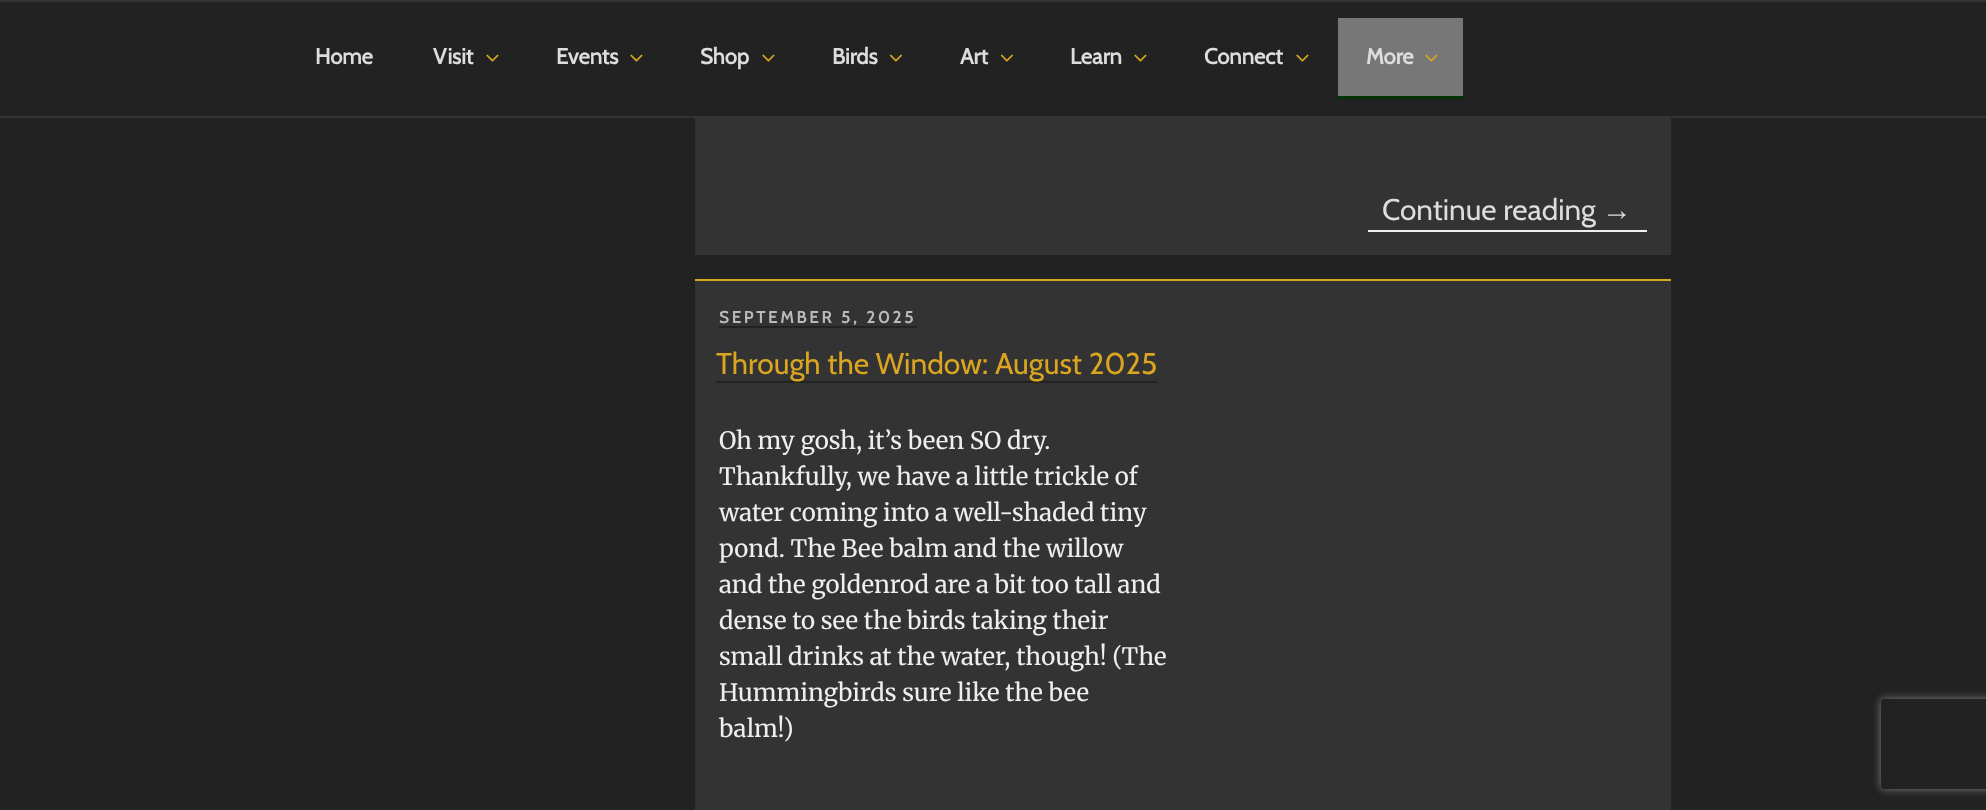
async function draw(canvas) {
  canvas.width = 1986;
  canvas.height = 810;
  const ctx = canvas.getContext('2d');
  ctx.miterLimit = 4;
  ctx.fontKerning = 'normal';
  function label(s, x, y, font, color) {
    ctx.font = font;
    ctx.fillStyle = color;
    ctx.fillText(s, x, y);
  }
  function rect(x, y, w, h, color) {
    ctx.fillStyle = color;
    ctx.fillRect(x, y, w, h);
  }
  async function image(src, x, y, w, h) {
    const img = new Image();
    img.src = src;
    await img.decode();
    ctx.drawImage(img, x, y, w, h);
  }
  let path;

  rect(0, 0, 1986, 810, '#222');
  rect(0, 0, 1986, 2, '#333');
  rect(0, 116, 1986, 2, '#333');
  label('Home', 315, 64, 'bold 22px Cabin', '#ddd');
  label('Visit', 433, 64, 'bold 22px Cabin', '#ddd');
  await image('assets/img1.png', 486, 54, 13, 8);
  label('Events', 556, 64, 'bold 22px Cabin', '#ddd');
  await image('assets/img1.png', 630, 54, 13, 8);
  label('Shop', 700, 64, 'bold 22px Cabin', '#ddd');
  await image('assets/img1.png', 762, 54, 13, 8);
  label('Birds', 832, 64, 'bold 22px Cabin', '#ddd');
  await image('assets/img2.png', 889, 54, 13, 8);
  label('Art', 960, 64, 'bold 22px Cabin', '#ddd');
  await image('assets/img2.png', 1000, 54, 13, 8);
  label('Learn', 1070, 64, 'bold 22px Cabin', '#ddd');
  await image('assets/img1.png', 1134, 54, 13, 8);
  label('Connect', 1204, 64, 'bold 22px Cabin', '#ddd');
  await image('assets/img1.png', 1296, 54, 13, 8);
  rect(1338, 18, 125, 78, '#777');
  rect(1338, 96, 125, 3, '#030');
  label('More', 1366, 64, 'bold 22px Cabin', '#ddd');
  await image('assets/img3.png', 1425, 54, 13, 8);
  rect(695, 118, 976, 137, '#333');
  rect(1368, 230, 279, 2, '#f0f0f0');
  label('Continue reading', 1382, 220, '29.75px Cabin', '#ddd');
  label('→', 1602, 220, '29.75px Liberation Sans', '#ddd');
  rect(695, 281, 976, 529, '#333');
  rect(695, 279, 976, 2, '#daa520');
  ctx.letterSpacing = '3px';
  label('SEPTEMBER 5, 2025', 719, 323, 'bold 16.5px Cabin', '#bbb');
  rect(719, 326, 198, 2, '#222');
  rect(716, 381, 441, 2, '#222');
  ctx.letterSpacing = '0px';
  label('Through the Window: August 2025', 716, 374, '30px Cabin', '#daa520');
  label('Oh my gosh, it’s been SO dry.', 719, 449, '300 24px Merriweather', '#eee');
  label('Thankfully, we have a little trickle of', 719, 485, '300 24px Merriweather', '#eee');
  label('water coming into a well-shaded tiny', 719, 521, '300 24px Merriweather', '#eee');
  label('pond. The Bee balm and the willow', 719, 557, '300 24px Merriweather', '#eee');
  label('and the goldenrod are a bit too tall and', 719, 593, '300 24px Merriweather', '#eee');
  label('dense to see the birds taking their', 719, 629, '300 24px Merriweather', '#eee');
  label('small drinks at the water, though! (The', 719, 665, '300 24px Merriweather', '#eee');
  label('Hummingbirds sure like the bee', 719, 701, '300 24px Merriweather', '#eee');
  label('balm!)', 719, 737, '300 24px Merriweather', '#eee');
  ctx.save();
  path = new Path2D('M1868 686H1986V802H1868ZM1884 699H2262C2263.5 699 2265 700.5 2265 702V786C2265 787.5 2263.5 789 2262 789H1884C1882.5 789 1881 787.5 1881 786V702C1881 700.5 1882.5 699 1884 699Z');
  ctx.clip(path, 'evenodd');
  ctx.fillStyle = '#808080';
  ctx.filter = 'blur(4px)';
  ctx.beginPath();
  ctx.roundRect(1881, 699, 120, 90, 3);
  ctx.fill();
  ctx.filter = 'none';
  ctx.restore();
}

draw(document.querySelector('canvas'));
